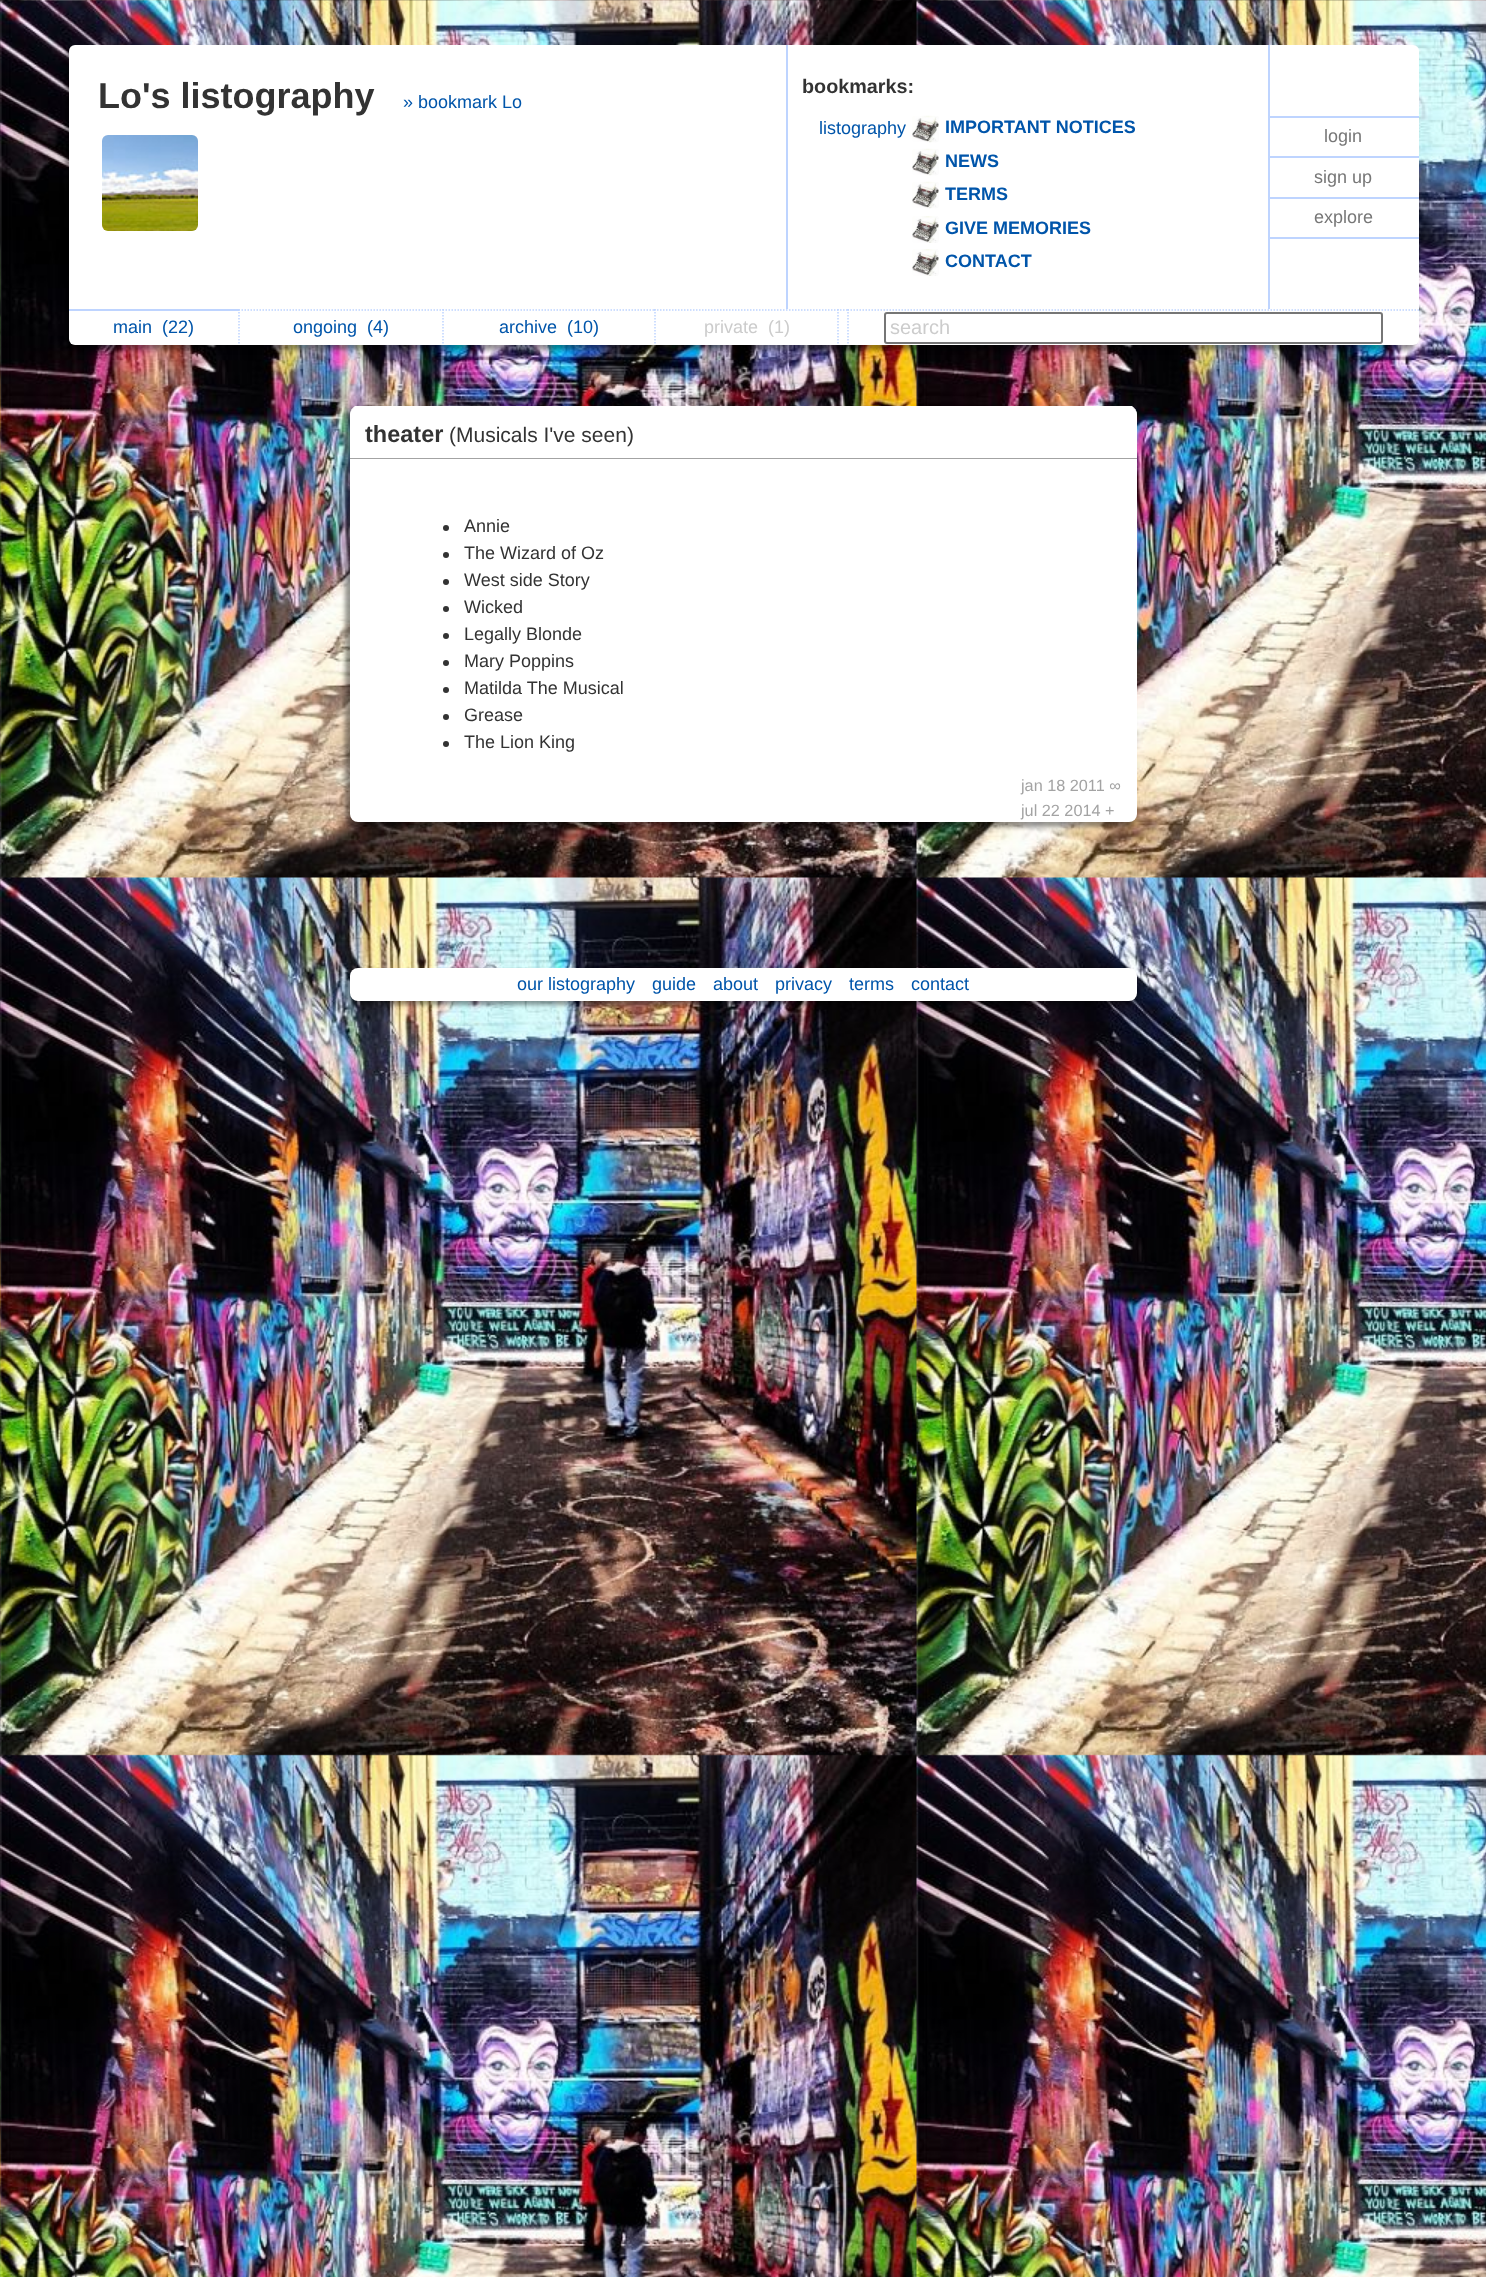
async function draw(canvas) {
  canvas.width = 1486;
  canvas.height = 2277;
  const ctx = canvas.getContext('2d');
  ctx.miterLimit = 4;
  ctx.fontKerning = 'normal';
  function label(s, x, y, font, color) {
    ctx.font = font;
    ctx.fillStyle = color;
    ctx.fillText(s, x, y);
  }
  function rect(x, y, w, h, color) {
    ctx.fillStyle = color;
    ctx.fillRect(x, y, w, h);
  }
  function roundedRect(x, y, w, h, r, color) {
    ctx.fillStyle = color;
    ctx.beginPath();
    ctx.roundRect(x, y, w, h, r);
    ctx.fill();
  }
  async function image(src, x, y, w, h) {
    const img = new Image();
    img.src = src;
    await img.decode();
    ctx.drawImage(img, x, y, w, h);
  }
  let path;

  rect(0, 0, 1486, 2277, '#fff');
  await image('assets/img1.png', 0, 0, 1486, 2277);
  ctx.fillStyle = '#00000066';
  ctx.filter = 'blur(2px)';
  ctx.beginPath();
  ctx.roundRect(65, 50, 1350, 300, 6);
  ctx.fill();
  ctx.filter = 'none';
  roundedRect(69, 45, 1350, 300, 6, '#fff');
  rect(786, 45, 2, 264, '#bed4ff');
  label('Lo\'s listography', 98, 108, 'bold 36px Liberation Sans', '#333');
  label('» bookmark Lo', 403, 108, '18px Liberation Sans', '#05a');
  await image('assets/img2.png', 102, 135, 96, 96);
  label('bookmarks:', 802, 93, 'bold 19.75px Liberation Sans', '#333');
  label('listography', 819, 134, '18px Liberation Sans', '#05a');
  await image('assets/img3.png', 912, 115, 27, 28);
  label('IMPORTANT NOTICES', 945, 133, 'bold 18px Liberation Sans', '#05a');
  await image('assets/img3.png', 912, 148, 27, 28);
  label('NEWS', 945, 167, 'bold 18px Liberation Sans', '#05a');
  await image('assets/img3.png', 912, 181, 27, 28);
  label('TERMS', 945, 200, 'bold 18px Liberation Sans', '#05a');
  await image('assets/img4.png', 912, 216, 27, 27);
  label('GIVE MEMORIES', 945, 234, 'bold 18px Liberation Sans', '#05a');
  await image('assets/img4.png', 912, 249, 27, 27);
  label('CONTACT', 945, 267, 'bold 18px Liberation Sans', '#05a');
  rect(1268, 116, 151, 2, '#bed4ff');
  rect(1268, 156, 151, 2, '#bed4ff');
  rect(1268, 197, 151, 2, '#bed4ff');
  rect(1268, 237, 151, 2, '#bed4ff');
  rect(1268, 45, 2, 264, '#bed4ff');
  label('login', 1324, 142, '18px Liberation Sans', '#777');
  label('sign up', 1314, 183, '18px Liberation Sans', '#777');
  label('explore', 1314, 223, '18px Liberation Sans', '#777');
  rect(69, 309, 170, 2, '#bed4ff');
  label('main', 113, 333, '18px Liberation Sans', '#05a');
  label('(22)', 162, 333, '18px Liberation Sans', '#05a');
  path = new Path2D('M238.5 310H442.5');
  ctx.strokeStyle = '#bed4ff';
  ctx.lineWidth = 1.5;
  ctx.setLineDash([1.5, 1.5]);
  ctx.stroke(path);
  path = new Path2D('M239 309V345');
  ctx.stroke(path);
  label('ongoing', 293, 333, '18px Liberation Sans', '#05a');
  label('(4)', 367, 333, '18px Liberation Sans', '#05a');
  path = new Path2D('M442.5 310H654');
  ctx.stroke(path);
  path = new Path2D('M443 309V345');
  ctx.stroke(path);
  label('archive', 499, 333, '18px Liberation Sans', '#05a');
  label('(10)', 567, 333, '18px Liberation Sans', '#05a');
  path = new Path2D('M654 310H837');
  ctx.stroke(path);
  path = new Path2D('M655 309V345');
  ctx.stroke(path);
  label('private', 704, 333, '18px Liberation Sans', '#ccc');
  label('(1)', 768, 333, '18px Liberation Sans', '#ccc');
  path = new Path2D('M837 310H838.5M840 310H841.5M843 310H844.5M846 310H847.5');
  ctx.setLineDash([]);
  ctx.stroke(path);
  path = new Path2D('M838 309V345');
  ctx.setLineDash([1.5, 1.5]);
  ctx.stroke(path);
  path = new Path2D('M847.5 310H1419');
  ctx.stroke(path);
  path = new Path2D('M848 309V345');
  ctx.stroke(path);
  ctx.beginPath();
  ctx.roundRect(885, 313, 497, 30, 2);
  ctx.strokeStyle = '#767676';
  ctx.lineWidth = 2;
  ctx.setLineDash([]);
  ctx.stroke();
  label('search', 890, 334, '20px Liberation Sans', '#ccc');
  ctx.fillStyle = '#00000066';
  ctx.filter = 'blur(2px)';
  ctx.beginPath();
  ctx.roundRect(345, 411, 788, 416, 8);
  ctx.fill();
  ctx.filter = 'none';
  roundedRect(350, 407, 787, 415, 8, '#fff');
  ctx.beginPath();
  ctx.roundRect(350, 407, 787, 52, [8, 8, 0, 0]);
  ctx.fill();
  path = new Path2D('M357 408C353 408 350 411 350 414C350 411 352 408 355 406H1132C1135 408 1137 411 1137 414C1137 411 1134 408 1130 408Z');
  ctx.fill(path);
  rect(350, 458, 787, 1, '#a3a3a3');
  label('theater', 365, 442, 'bold 23.5px Liberation Sans', '#333');
  label('(Musicals I\'ve seen)', 449, 442, '21px Liberation Sans', '#333');
  ctx.beginPath();
  ctx.arc(446, 528, 3, 0, 2 * Math.PI);
  ctx.fill();
  label('Annie', 464, 532, '18px Liberation Sans', '#333');
  ctx.beginPath();
  ctx.arc(446, 555, 3, 0, 2 * Math.PI);
  ctx.fill();
  label('The Wizard of Oz', 464, 559, '18px Liberation Sans', '#333');
  ctx.beginPath();
  ctx.arc(446, 582, 3, 0, 2 * Math.PI);
  ctx.fill();
  label('West side Story', 464, 586, '18px Liberation Sans', '#333');
  ctx.beginPath();
  ctx.arc(446, 609, 3, 0, 2 * Math.PI);
  ctx.fill();
  label('Wicked', 464, 613, '18px Liberation Sans', '#333');
  ctx.beginPath();
  ctx.arc(446, 636, 3, 0, 2 * Math.PI);
  ctx.fill();
  label('Legally Blonde', 464, 640, '18px Liberation Sans', '#333');
  ctx.beginPath();
  ctx.arc(446, 663, 3, 0, 2 * Math.PI);
  ctx.fill();
  label('Mary Poppins', 464, 667, '18px Liberation Sans', '#333');
  ctx.beginPath();
  ctx.arc(446, 690, 3, 0, 2 * Math.PI);
  ctx.fill();
  label('Matilda The Musical', 464, 694, '18px Liberation Sans', '#333');
  ctx.beginPath();
  ctx.arc(446, 717, 3, 0, 2 * Math.PI);
  ctx.fill();
  label('Grease', 464, 721, '18px Liberation Sans', '#333');
  ctx.beginPath();
  ctx.arc(446, 744, 3, 0, 2 * Math.PI);
  ctx.fill();
  label('The Lion King', 464, 748, '18px Liberation Sans', '#333');
  label('jan 18 2011 ∞', 1021, 791, '16.25px Liberation Sans', '#a3a3a3');
  label('jul 22 2014 +', 1021, 816, '16.25px Liberation Sans', '#a3a3a3');
  ctx.fillStyle = '#00000066';
  ctx.filter = 'blur(2px)';
  ctx.beginPath();
  ctx.roundRect(345, 972, 788, 33, 8);
  ctx.fill();
  ctx.filter = 'none';
  roundedRect(350, 968, 787, 33, 8, '#fff');
  label('our listography', 517, 990, '18px Liberation Sans', '#05a');
  label('guide', 652, 990, '18px Liberation Sans', '#05a');
  label('about', 713, 990, '18px Liberation Sans', '#05a');
  label('privacy', 775, 990, '18px Liberation Sans', '#05a');
  label('terms', 849, 990, '18px Liberation Sans', '#05a');
  label('contact', 911, 990, '18px Liberation Sans', '#05a');
}

draw(document.querySelector('canvas'));
